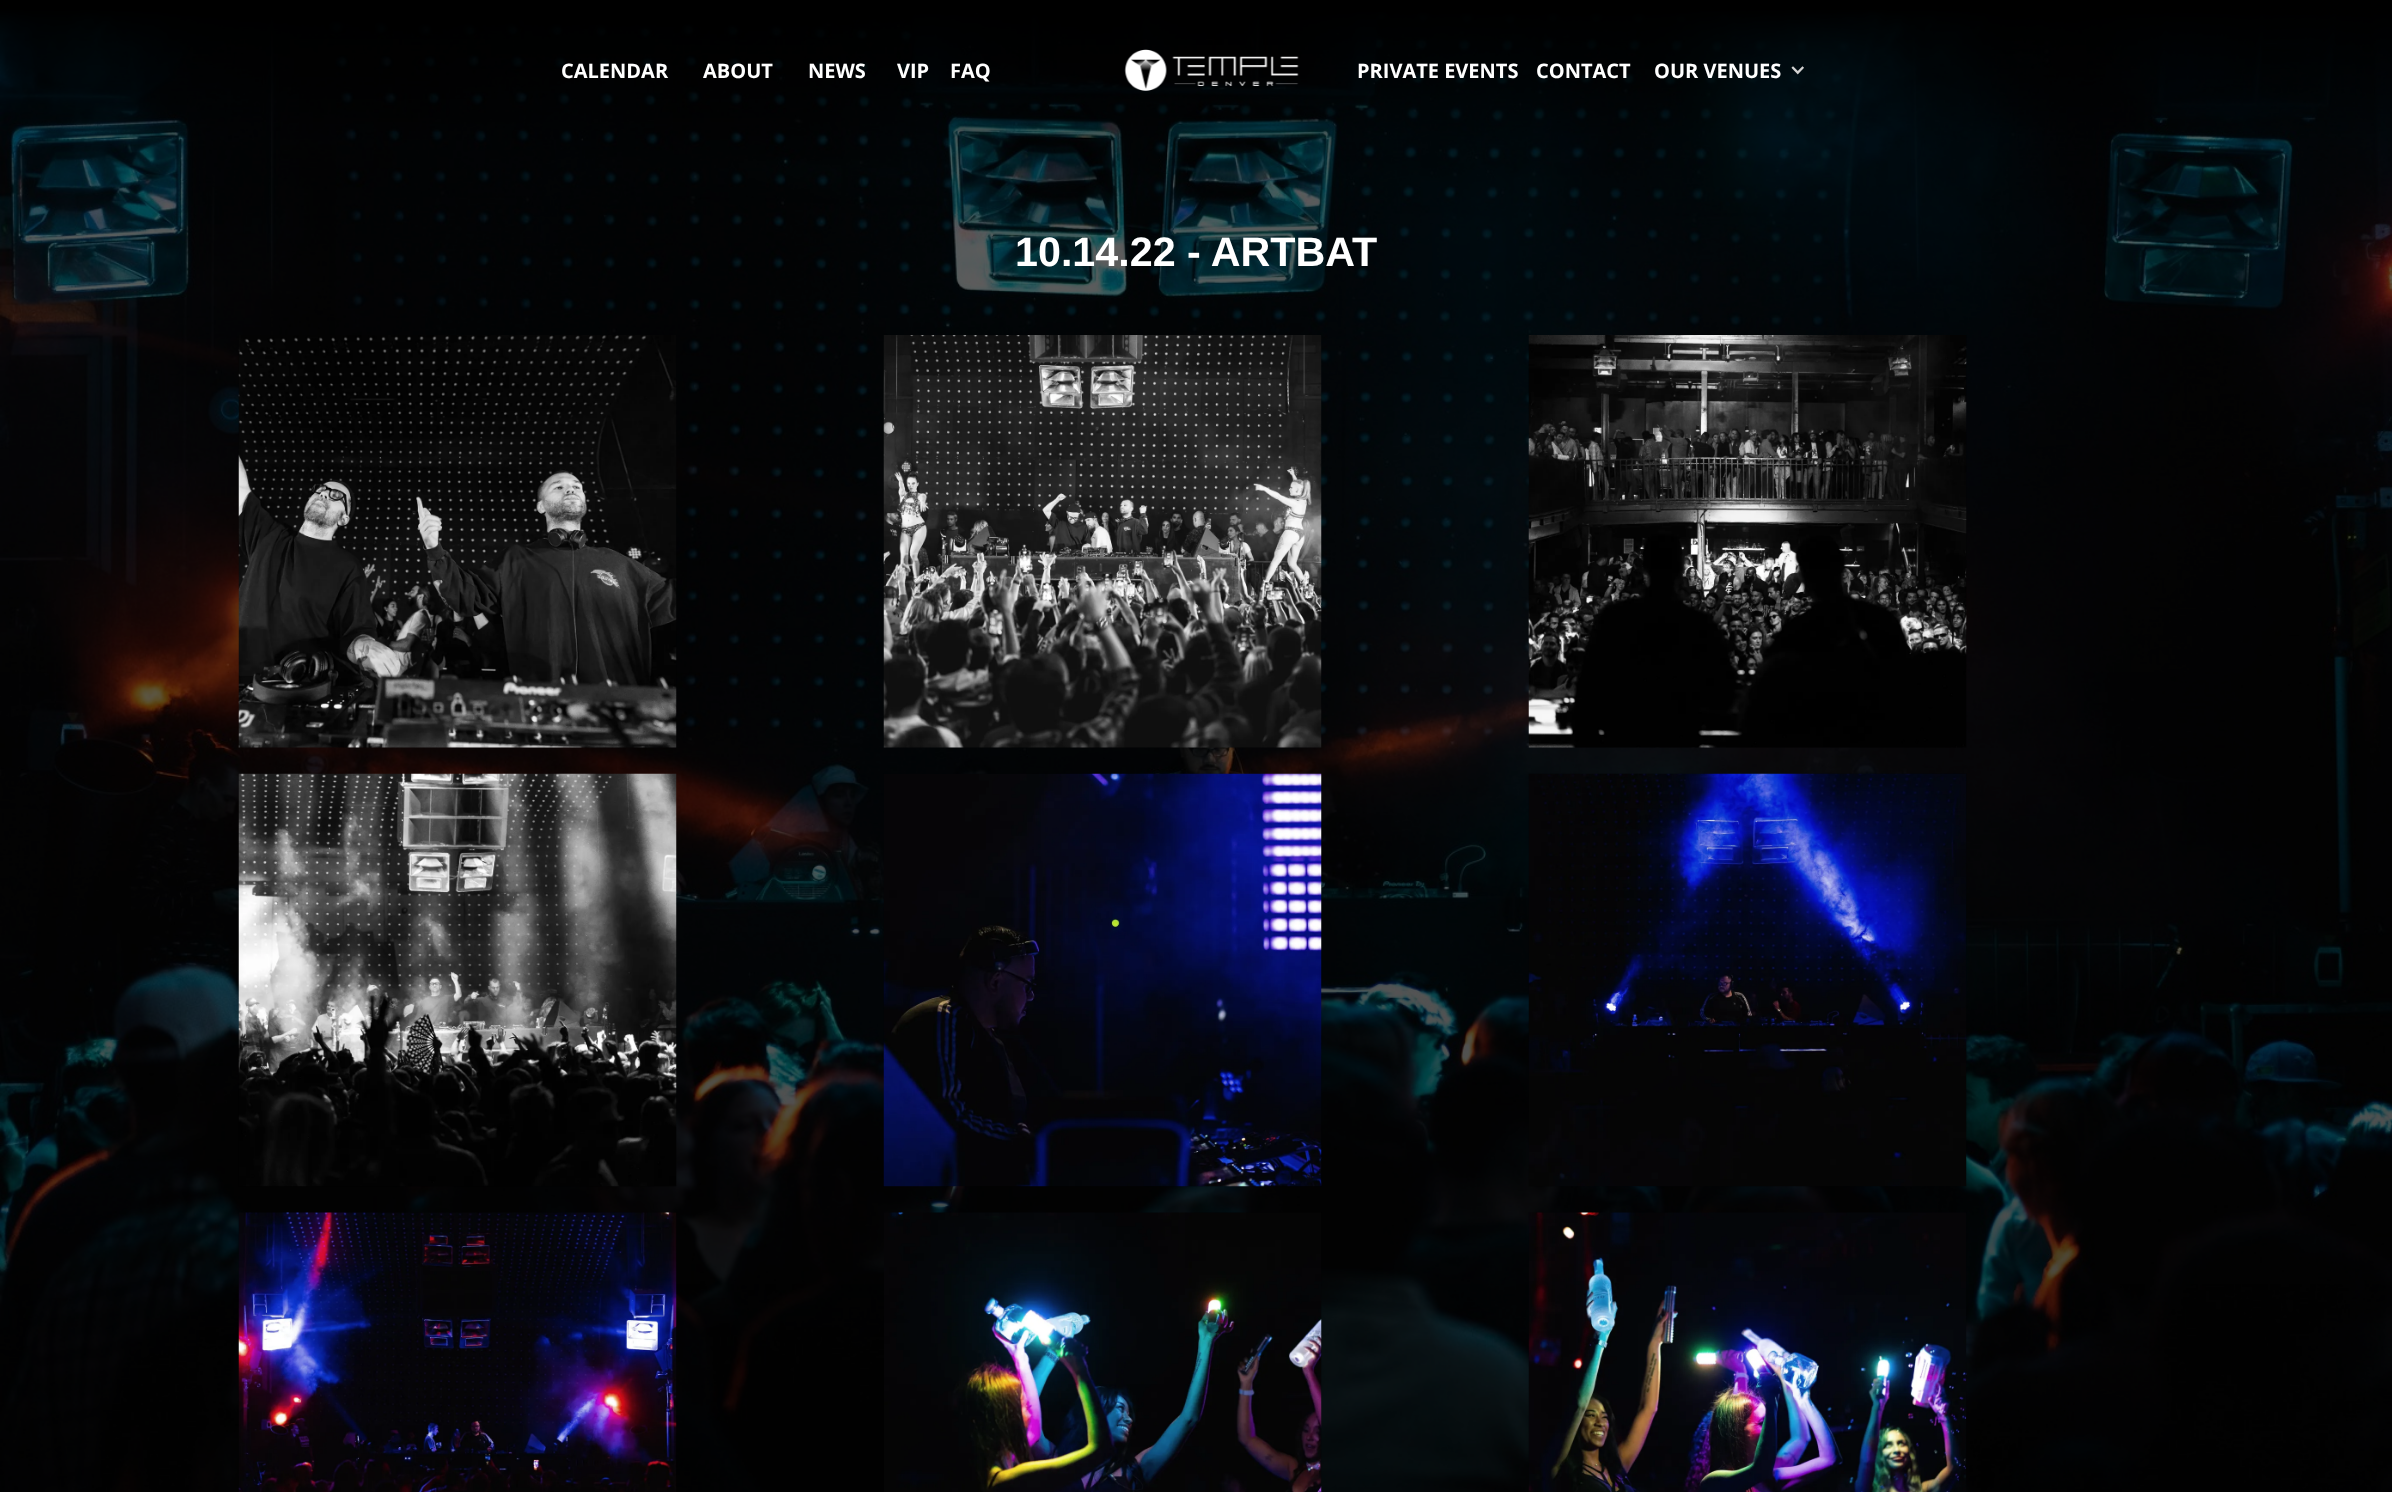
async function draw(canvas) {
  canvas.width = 2392;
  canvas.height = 1492;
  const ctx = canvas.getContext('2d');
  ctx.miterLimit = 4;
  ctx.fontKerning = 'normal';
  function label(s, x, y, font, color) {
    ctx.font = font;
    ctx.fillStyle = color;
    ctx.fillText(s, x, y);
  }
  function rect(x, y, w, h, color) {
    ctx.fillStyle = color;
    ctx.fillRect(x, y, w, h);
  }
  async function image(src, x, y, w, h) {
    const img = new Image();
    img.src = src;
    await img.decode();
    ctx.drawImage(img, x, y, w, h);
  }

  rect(0, 0, 2392, 1492, '#fff');
  await image('assets/img1.png', 0, 0, 2392, 1492);
  label('CALENDAR', 561, 78, 'bold 20px Open Sans', '#fff');
  label('ABOUT', 703, 78, 'bold 20px Open Sans', '#fff');
  label('NEWS', 808, 78, 'bold 20px Open Sans', '#fff');
  label('VIP', 897, 78, 'bold 20px Open Sans', '#fff');
  label('FAQ', 950, 78, 'bold 20px Open Sans', '#fff');
  await image('assets/img2.png', 1124, 49, 175, 42);
  label('PRIVATE EVENTS', 1357, 78, 'bold 20px Open Sans', '#fff');
  label('CONTACT', 1536, 78, 'bold 20px Open Sans', '#fff');
  label('OUR VENUES', 1654, 78, 'bold 20px Open Sans', '#fff');
  await image('assets/img3.png', 1791, 66, 13, 9);
  label('10.14.22 - ARTBAT', 1015, 266, 'bold 41.25px Liberation Sans', '#fff');
  await image('assets/img4.png', 238, 335, 439, 413);
  await image('assets/img5.png', 883, 335, 439, 413);
  await image('assets/img6.png', 1528, 335, 439, 413);
  await image('assets/img7.png', 238, 773, 439, 414);
  await image('assets/img8.png', 883, 773, 439, 414);
  await image('assets/img9.png', 1528, 773, 439, 414);
  await image('assets/img10.png', 238, 1212, 439, 280);
  await image('assets/img11.png', 884, 1212, 438, 280);
  await image('assets/img12.png', 1528, 1212, 439, 280);
}

draw(document.querySelector('canvas'));
